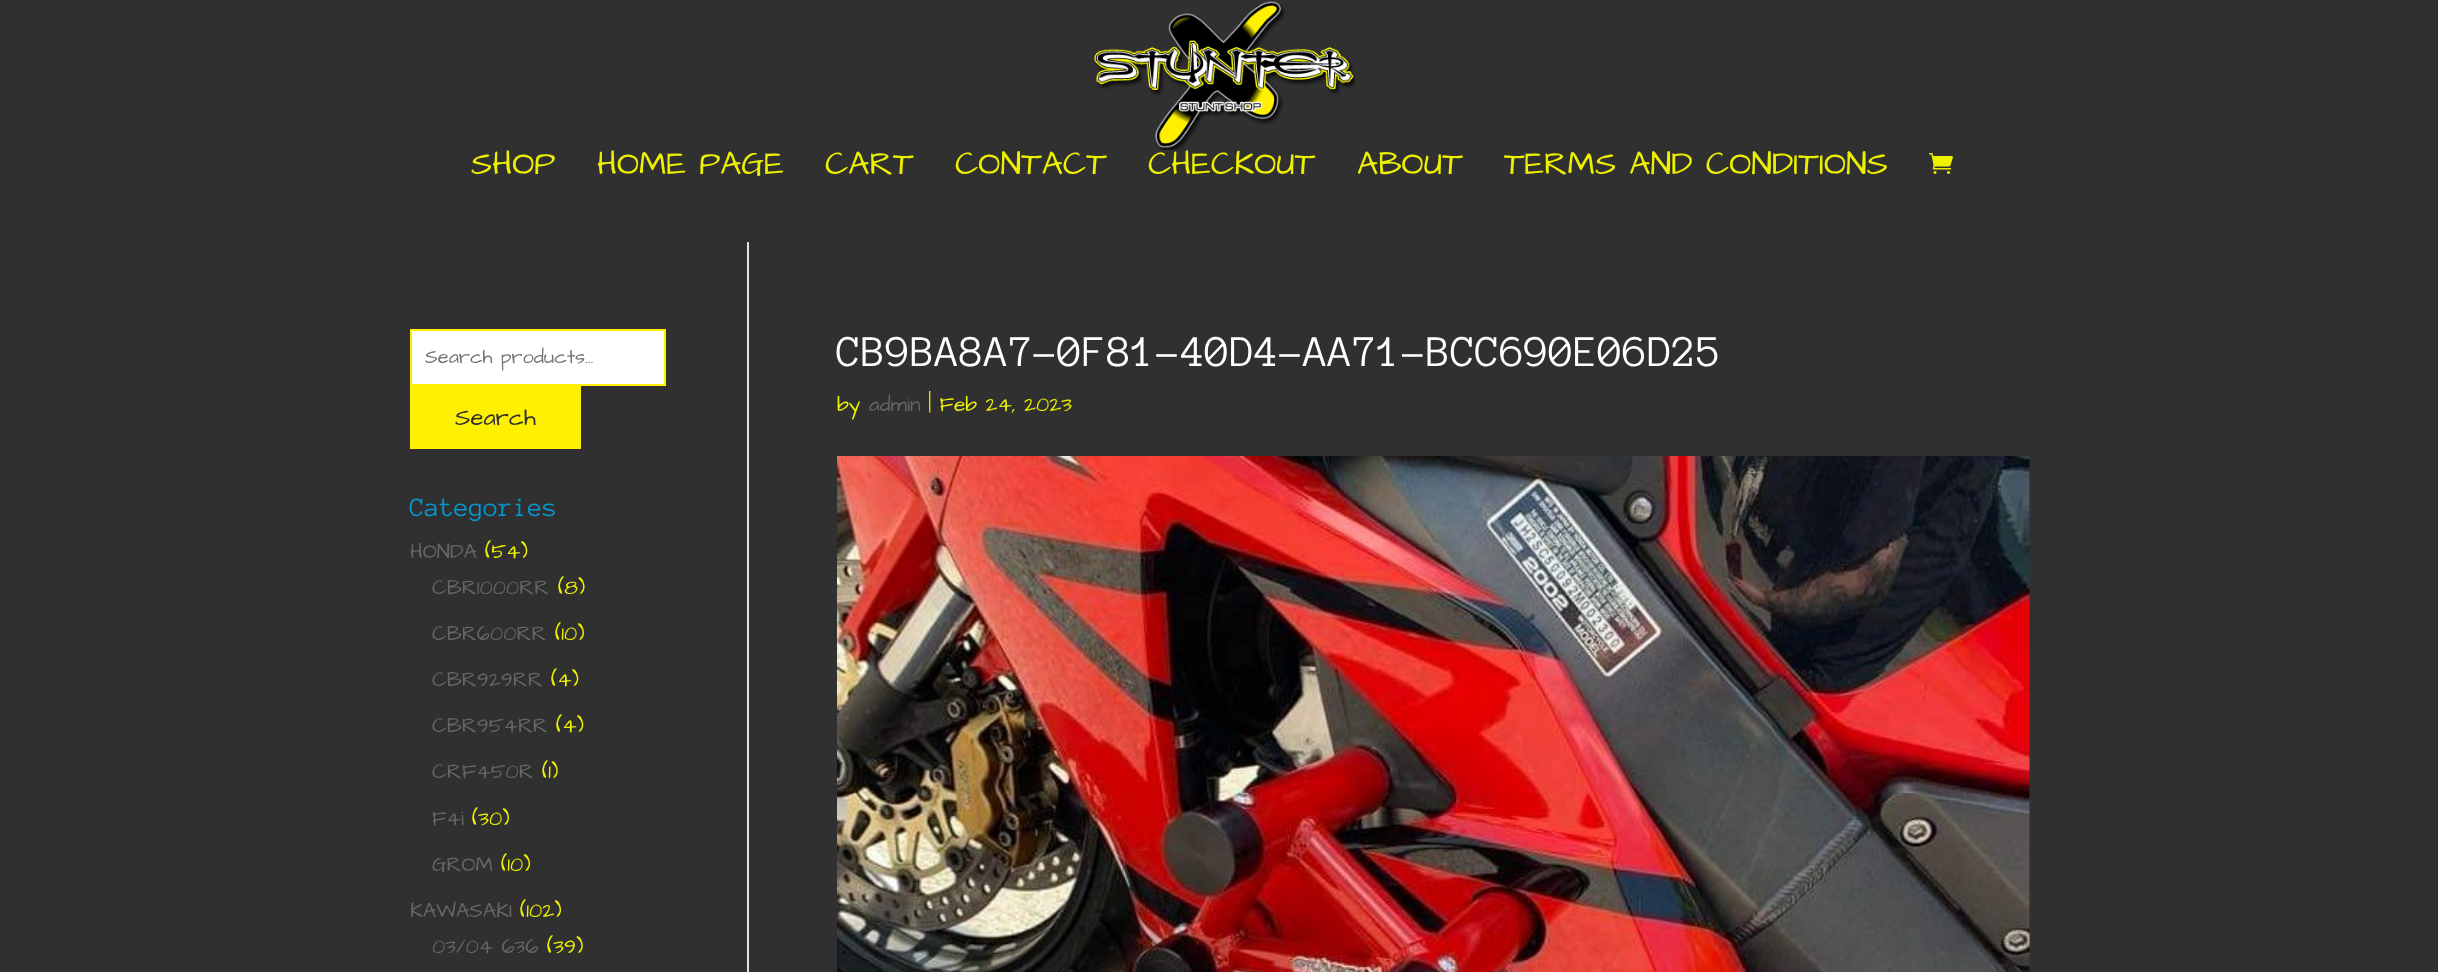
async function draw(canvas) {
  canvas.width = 2438;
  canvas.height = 972;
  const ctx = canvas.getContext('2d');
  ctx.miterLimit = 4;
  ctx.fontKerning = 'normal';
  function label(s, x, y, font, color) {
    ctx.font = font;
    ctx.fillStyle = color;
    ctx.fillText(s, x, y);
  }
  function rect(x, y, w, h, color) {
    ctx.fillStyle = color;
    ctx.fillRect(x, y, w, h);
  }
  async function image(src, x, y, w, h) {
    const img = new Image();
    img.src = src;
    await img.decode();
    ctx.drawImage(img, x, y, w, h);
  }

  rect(0, 0, 2438, 972, '#303030');
  await image('assets/img1.png', 1094, 1, 261, 149);
  label('SHOP', 471, 174, '33px Architects Daughter', '#edf000');
  label('HOME PAGE', 597, 174, '33px Architects Daughter', '#edf000');
  label('CART', 825, 174, '33px Architects Daughter', '#edf000');
  label('CONTACT', 955, 174, '33px Architects Daughter', '#edf000');
  label('CHECKOUT', 1148, 174, '33px Architects Daughter', '#edf000');
  label('ABOUT', 1357, 174, '33px Architects Daughter', '#edf000');
  label('TERMS AND CONDITIONS', 1504, 174, '33px Architects Daughter', '#edf000');
  await image('assets/img2.png', 1929, 153, 24, 21);
  rect(0, 242, 2438, 1, '#2b2b2b');
  rect(747, 242, 2, 730, '#e2e2e2');
  rect(747, 242, 2, 1, '#cbcbcb');
  ctx.fillStyle = '#fff';
  ctx.beginPath();
  ctx.rect(411, 330, 254, 55);
  ctx.fill();
  ctx.strokeStyle = '#fff000';
  ctx.lineWidth = 2;
  ctx.stroke();
  label('Search products…', 425, 363, '20px Architects Daughter', '#757575');
  rect(410, 386, 171, 63, '#fff000');
  label('Search', 455, 425, '24px Architects Daughter', '#303030');
  label('Categories', 410, 516, '27px Anonymous Pro', '#0498d3');
  label('HONDA', 410, 558, '21px Architects Daughter', '#666');
  label('(54)', 485, 558, '21px Architects Daughter', '#edf000');
  label('CBR1000RR', 432, 594, '21px Architects Daughter', '#666');
  label('(8)', 558, 594, '21px Architects Daughter', '#edf000');
  label('CBR600RR', 432, 640, '21px Architects Daughter', '#666');
  label('(10)', 555, 640, '21px Architects Daughter', '#edf000');
  label('CBR929RR', 432, 686, '21px Architects Daughter', '#666');
  label('(4)', 551, 686, '21px Architects Daughter', '#edf000');
  label('CBR954RR', 432, 732, '21px Architects Daughter', '#666');
  label('(4)', 556, 732, '21px Architects Daughter', '#edf000');
  label('CRF450R', 432, 778, '21px Architects Daughter', '#666');
  label('(1)', 542, 778, '21px Architects Daughter', '#edf000');
  label('F4i', 432, 825, '21px Architects Daughter', '#666');
  label('(30)', 472, 825, '21px Architects Daughter', '#edf000');
  label('GROM', 432, 871, '21px Architects Daughter', '#666');
  label('(10)', 501, 871, '21px Architects Daughter', '#edf000');
  label('KAWASAKI', 410, 917, '21px Architects Daughter', '#666');
  label('(102)', 520, 917, '21px Architects Daughter', '#edf000');
  label('03/04 636', 432, 953, '21px Architects Daughter', '#666');
  label('(39)', 547, 953, '21px Architects Daughter', '#edf000');
  label('CB9BA8A7-0F81-40D4-AA71-BCC690E06D25', 837, 366, '45px Anonymous Pro', '#fff');
  label('by', 837, 411, '21px Architects Daughter', '#edf000');
  label('admin', 869, 411, '21px Architects Daughter', '#666');
  label('| Feb 24, 2023', 928, 411, '21px Architects Daughter', '#edf000');
  await image('assets/img3.png', 837, 456, 1193, 516);
}

draw(document.querySelector('canvas'));
